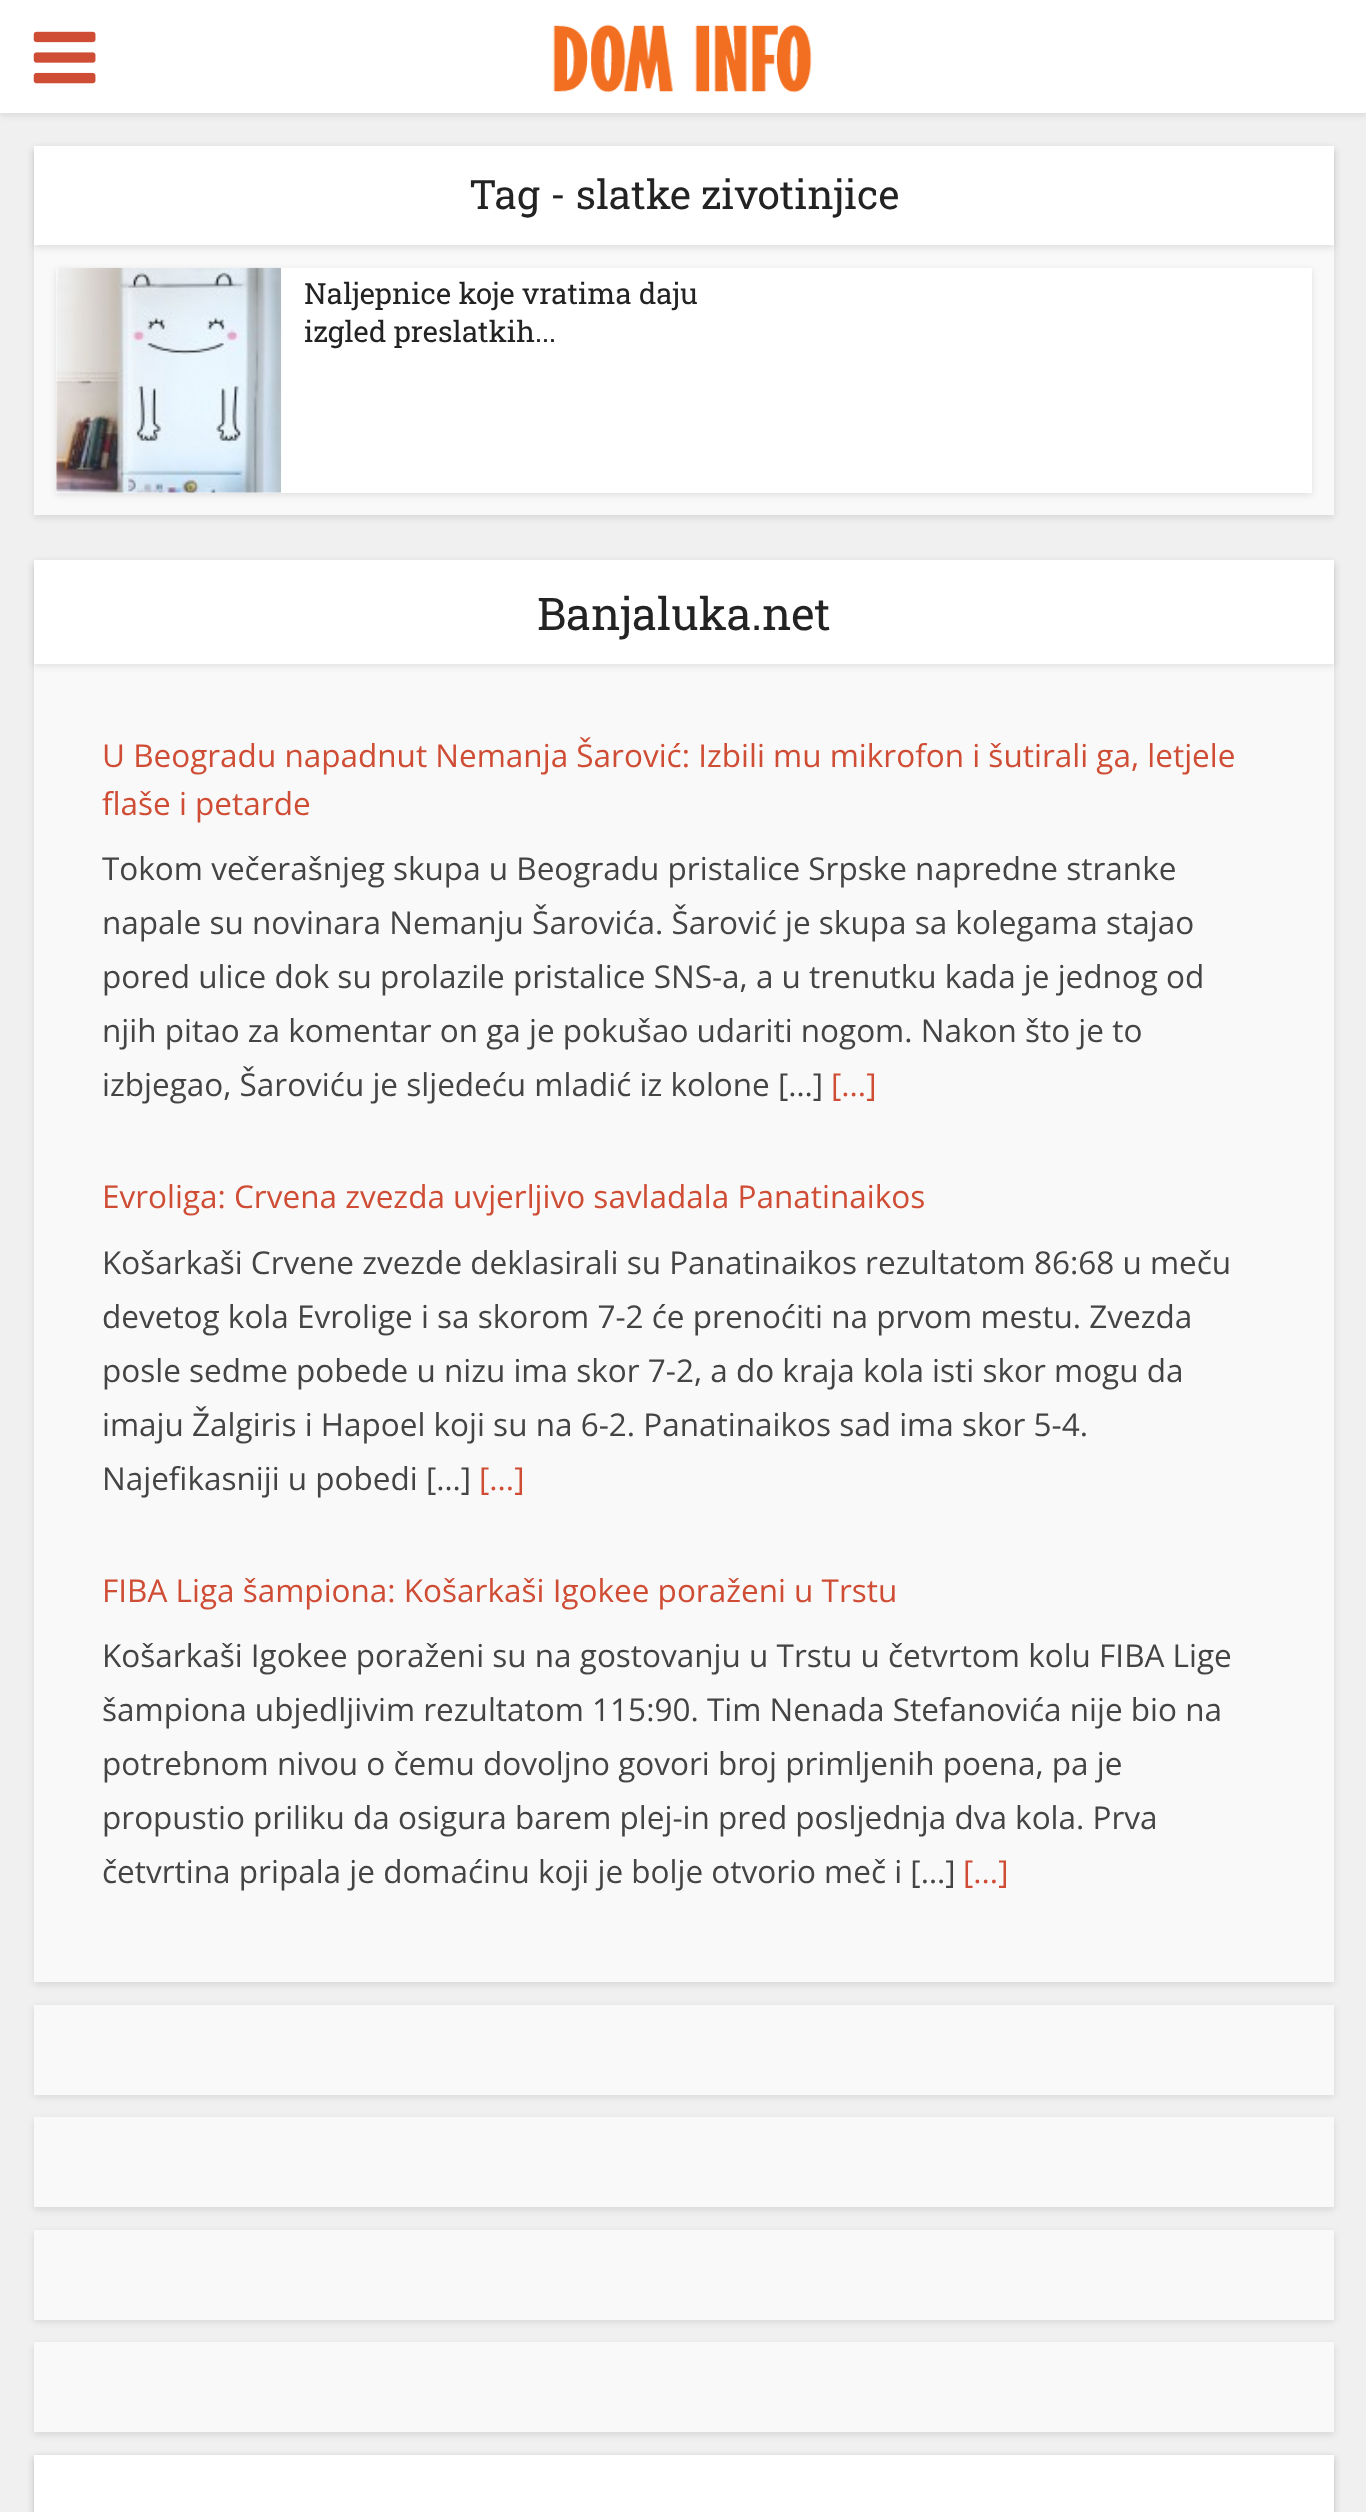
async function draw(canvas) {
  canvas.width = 1366;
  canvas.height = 2512;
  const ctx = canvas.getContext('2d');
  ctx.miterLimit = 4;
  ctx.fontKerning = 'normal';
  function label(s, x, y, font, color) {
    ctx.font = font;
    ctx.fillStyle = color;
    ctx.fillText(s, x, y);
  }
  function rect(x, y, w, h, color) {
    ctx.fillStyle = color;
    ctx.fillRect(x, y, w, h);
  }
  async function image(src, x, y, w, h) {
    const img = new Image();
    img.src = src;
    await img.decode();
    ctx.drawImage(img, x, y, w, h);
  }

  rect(0, 0, 1366, 2512, '#f0f0f0');
  ctx.fillStyle = '#0000001a';
  ctx.filter = 'blur(3.5px)';
  ctx.beginPath();
  ctx.rect(0, 2, 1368, 113);
  ctx.fill();
  ctx.filter = 'none';
  rect(0, 0, 1366, 113, '#fff');
  await image('assets/img1.png', 33, 31, 63, 53);
  await image('assets/img2.png', 553, 24, 259, 69);
  ctx.fillStyle = '#0000001a';
  ctx.filter = 'blur(3.5px)';
  ctx.beginPath();
  ctx.rect(34, 149, 1300, 369);
  ctx.fill();
  ctx.filter = 'none';
  rect(34, 245, 1300, 270, '#f9f9f9');
  ctx.fillStyle = '#0000001a';
  ctx.filter = 'blur(3.5px)';
  ctx.beginPath();
  ctx.rect(34, 149, 1300, 99);
  ctx.fill();
  ctx.filter = 'none';
  rect(34, 146, 1300, 99, '#fff');
  label('Tag - slatke zivotinjice', 469, 209, '40.5px Roboto Slab', '#232323');
  ctx.fillStyle = '#0000001a';
  ctx.filter = 'blur(3.5px)';
  ctx.beginPath();
  ctx.rect(56, 270, 1256, 225);
  ctx.fill();
  ctx.filter = 'none';
  rect(56, 268, 1256, 225, '#fff');
  await image('assets/img3.png', 56, 267, 226, 226);
  label('Naljepnice koje vratima daju', 304, 304, '29.25px Roboto Slab', '#232323');
  label('izgled preslatkih...', 304, 342, '29.25px Roboto Slab', '#232323');
  ctx.fillStyle = '#0000001a';
  ctx.filter = 'blur(3.5px)';
  ctx.beginPath();
  ctx.rect(34, 563, 1300, 1422);
  ctx.fill();
  ctx.filter = 'none';
  rect(34, 664, 1300, 1318, '#f9f9f9');
  ctx.fillStyle = '#0000001a';
  ctx.filter = 'blur(3.5px)';
  ctx.beginPath();
  ctx.rect(34, 563, 1300, 103);
  ctx.fill();
  ctx.filter = 'none';
  rect(34, 560, 1300, 104, '#fff');
  label('Banjaluka.net', 537, 630, '45px Roboto Slab', '#232323');
  label('U Beogradu napadnut Nemanja Šarović: Izbili mu mikrofon i šutirali ga, letjele', 102, 767, '31.5px Open Sans', '#cf4d35');
  label('flaše i petarde', 102, 815, '31.5px Open Sans', '#cf4d35');
  label('Tokom večerašnjeg skupa u Beogradu pristalice Srpske napredne stranke', 102, 880, '31.5px Open Sans', '#444');
  label('napale su novinara Nemanju Šarovića. Šarović je skupa sa kolegama stajao', 102, 934, '31.5px Open Sans', '#444');
  label('pored ulice dok su prolazile pristalice SNS-a, a u trenutku kada je jednog od', 102, 988, '31.5px Open Sans', '#444');
  label('njih pitao za komentar on ga je pokušao udariti nogom. Nakon što je to', 102, 1042, '31.5px Open Sans', '#444');
  label('izbjegao, Šaroviću je sljedeću mladić iz kolone […]', 102, 1096, '31.5px Open Sans', '#444');
  label('[...]', 831, 1096, '31.5px Open Sans', '#cf4d35');
  label('Evroliga: Crvena zvezda uvjerljivo savladala Panatinaikos', 102, 1208, '31.5px Open Sans', '#cf4d35');
  label('Košarkaši Crvene zvezde deklasirali su Panatinaikos rezultatom 86:68 u meču', 102, 1274, '31.5px Open Sans', '#444');
  label('devetog kola Evrolige i sa skorom 7-2 će prenoćiti na prvom mestu. Zvezda', 102, 1328, '31.5px Open Sans', '#444');
  label('posle sedme pobede u nizu ima skor 7-2, a do kraja kola isti skor mogu da', 102, 1382, '31.5px Open Sans', '#444');
  label('imaju Žalgiris i Hapoel koji su na 6-2. Panatinaikos sad ima skor 5-4.', 102, 1436, '31.5px Open Sans', '#444');
  label('Najefikasniji u pobedi […]', 102, 1490, '31.5px Open Sans', '#444');
  label('[...]', 479, 1490, '31.5px Open Sans', '#cf4d35');
  label('FIBA Liga šampiona: Košarkaši Igokee poraženi u Trstu', 102, 1602, '31.5px Open Sans', '#cf4d35');
  label('Košarkaši Igokee poraženi su na gostovanju u Trstu u četvrtom kolu FIBA Lige', 102, 1667, '31.5px Open Sans', '#444');
  label('šampiona ubjedljivim rezultatom 115:90. Tim Nenada Stefanovića nije bio na', 102, 1721, '31.5px Open Sans', '#444');
  label('potrebnom nivou o čemu dovoljno govori broj primljenih poena, pa je', 102, 1775, '31.5px Open Sans', '#444');
  label('propustio priliku da osigura barem plej-in pred posljednja dva kola. Prva', 102, 1829, '31.5px Open Sans', '#444');
  label('četvrtina pripala je domaćinu koji je bolje otvorio meč i […]', 102, 1883, '31.5px Open Sans', '#444');
  label('[...]', 963, 1883, '31.5px Open Sans', '#cf4d35');
  ctx.fillStyle = '#0000001a';
  ctx.filter = 'blur(3.5px)';
  ctx.beginPath();
  ctx.rect(34, 2007, 1300, 90);
  ctx.fill();
  ctx.filter = 'none';
  rect(34, 2005, 1300, 90, '#f9f9f9');
  ctx.fillStyle = '#0000001a';
  ctx.filter = 'blur(3.5px)';
  ctx.beginPath();
  ctx.rect(34, 2120, 1300, 90);
  ctx.fill();
  ctx.filter = 'none';
  rect(34, 2117, 1300, 90, '#f9f9f9');
  ctx.fillStyle = '#0000001a';
  ctx.filter = 'blur(3.5px)';
  ctx.beginPath();
  ctx.rect(34, 2232, 1300, 90);
  ctx.fill();
  ctx.filter = 'none';
  rect(34, 2230, 1300, 90, '#f9f9f9');
  ctx.fillStyle = '#0000001a';
  ctx.filter = 'blur(3.5px)';
  ctx.beginPath();
  ctx.rect(34, 2345, 1300, 90);
  ctx.fill();
  ctx.filter = 'none';
  rect(34, 2342, 1300, 90, '#f9f9f9');
  ctx.fillStyle = '#0000001a';
  ctx.filter = 'blur(3.5px)';
  ctx.beginPath();
  ctx.rect(34, 2457, 1300, 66);
  ctx.fill();
  ctx.filter = 'none';
  ctx.filter = 'blur(3.5px)';
  ctx.beginPath();
  ctx.rect(34, 2457, 1300, 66);
  ctx.fill();
  ctx.filter = 'none';
  rect(34, 2455, 1300, 57, '#fff');
}

draw(document.querySelector('canvas'));
